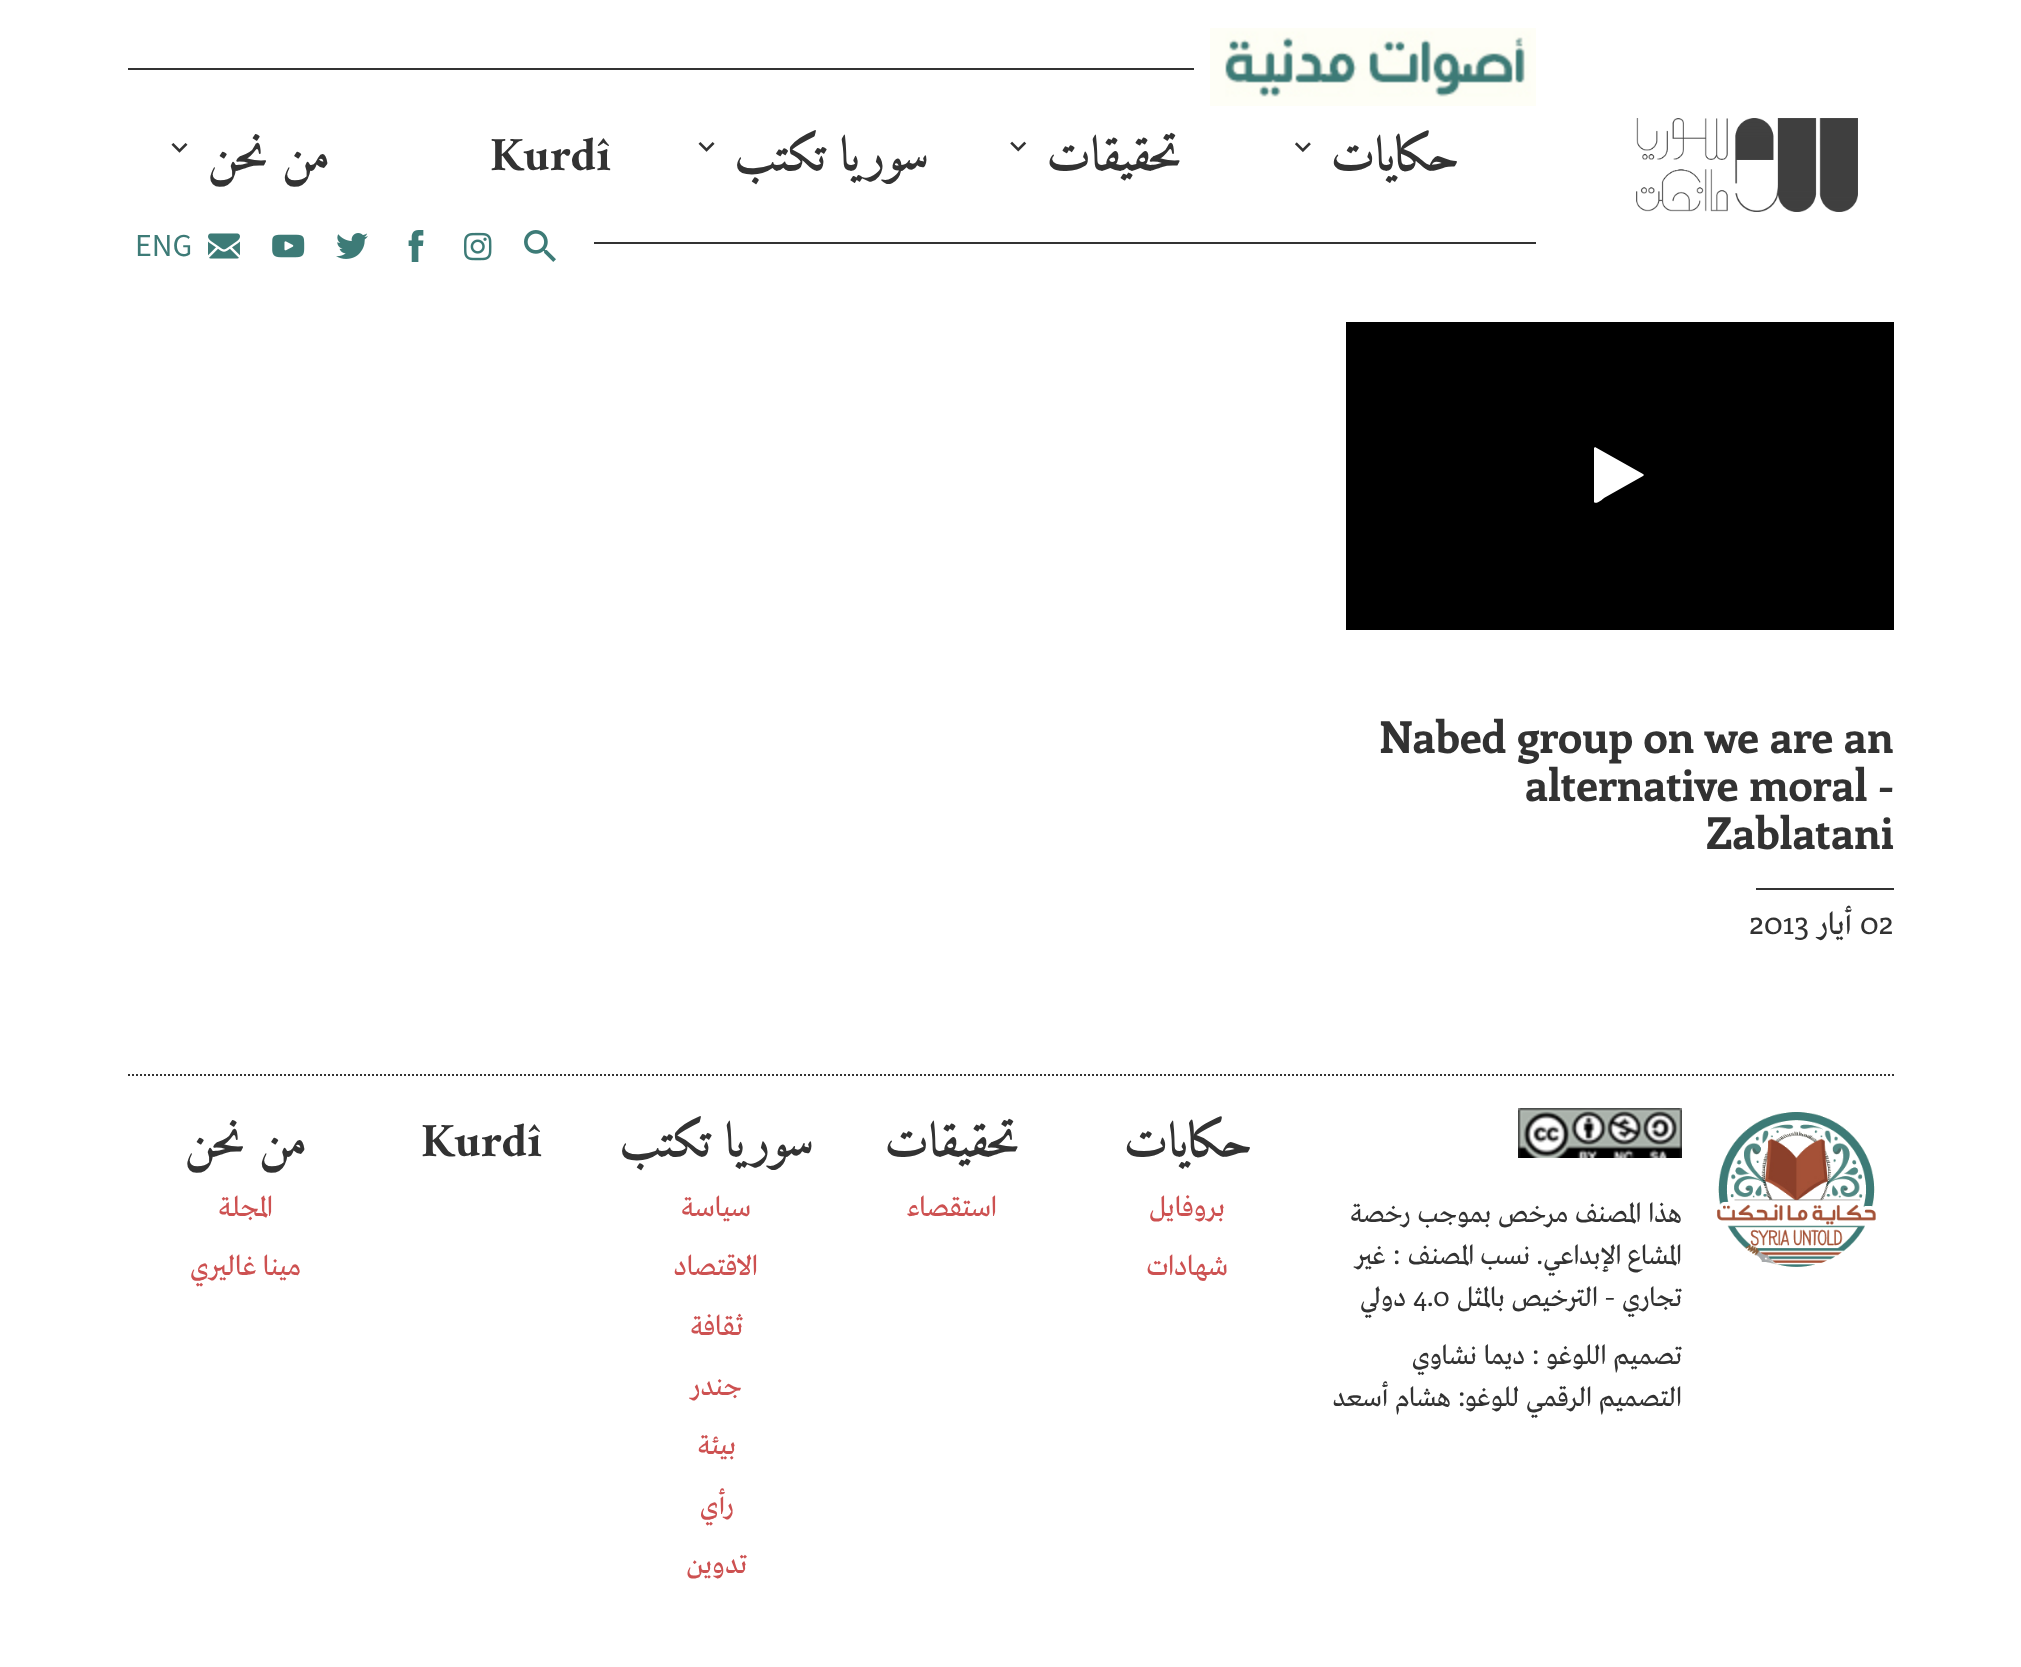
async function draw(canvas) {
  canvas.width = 2021;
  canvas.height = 1667;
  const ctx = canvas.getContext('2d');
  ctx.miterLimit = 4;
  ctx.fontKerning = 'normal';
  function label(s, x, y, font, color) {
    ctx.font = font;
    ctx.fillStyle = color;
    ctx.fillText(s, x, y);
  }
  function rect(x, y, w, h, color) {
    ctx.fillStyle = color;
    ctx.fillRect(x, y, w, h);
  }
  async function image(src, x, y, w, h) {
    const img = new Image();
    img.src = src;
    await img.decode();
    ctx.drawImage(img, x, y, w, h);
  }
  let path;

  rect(0, 0, 2021, 1667, '#fff');
  await image('assets/img1.png', 1636, 118, 222, 94);
  await image('assets/img2.png', 1210, 28, 326, 78);
  rect(128, 68, 1066, 2, '#323232');
  ctx.direction = 'rtl';
  label('حكايات', 1459, 170, 'bold 48px Amiri', '#323232');
  await image('assets/img3.png', 1295, 142, 16, 11);
  label('تحقيقات', 1181, 170, 'bold 48px Amiri', '#323232');
  await image('assets/img4.png', 1010, 141, 17, 11);
  label('سوريا تكتب', 929, 170, 'bold 48px Amiri', '#323232');
  await image('assets/img5.png', 698, 142, 17, 10);
  ctx.direction = 'ltr';
  label('Kurdî', 490, 170, 'bold 48px Amiri', '#323232');
  ctx.direction = 'rtl';
  label('من نحن', 330, 170, 'bold 48px Amiri', '#323232');
  await image('assets/img6.png', 171, 143, 17, 10);
  rect(594, 242, 942, 2, '#323232');
  await image('assets/img7.png', 524, 230, 32, 32);
  await image('assets/img8.png', 464, 232, 28, 29);
  await image('assets/img9.png', 408, 230, 16, 32);
  await image('assets/img10.png', 336, 233, 32, 26);
  await image('assets/img11.png', 272, 234, 33, 24);
  await image('assets/img12.png', 208, 233, 32, 26);
  ctx.direction = 'ltr';
  label('ENG', 135, 256, '32px Mada', '#3d7b77');
  rect(1346, 322, 548, 308, '#000');
  ctx.fillStyle = '#fff';
  path = new Path2D('M1643 476L1604 498C1603 499 1596 505 1594 502V448L1595 447L1643 474L1644 475Z');
  ctx.fill(path);
  label('Nabed group on we are an', 1379, 753, 'bold 44px Enriqueta', '#323232');
  label('alternative moral -', 1525, 801, 'bold 44px Enriqueta', '#323232');
  label('Zablatani', 1706, 849, 'bold 44px Enriqueta', '#323232');
  rect(1756, 888, 138, 2, '#323232');
  label('02', 1860, 934, '32px Enriqueta', '#323232');
  ctx.direction = 'rtl';
  label('أيار', 1852, 934, '32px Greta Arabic', '#323232');
  ctx.direction = 'ltr';
  label('2013', 1749, 934, '32px Enriqueta', '#323232');
  path = new Path2D('M128 1075H1894');
  ctx.strokeStyle = '#323232';
  ctx.lineWidth = 2;
  ctx.setLineDash([2, 2]);
  ctx.stroke(path);
  await image('assets/img13.png', 1717, 1112, 159, 155);
  await image('assets/img14.png', 1518, 1108, 164, 50);
  ctx.wordSpacing = '1px';
  ctx.direction = 'rtl';
  label('هذا المصنف مرخص بموجب رخصة', 1682, 1222, '28px Greta Arabic', '#323232');
  ctx.wordSpacing = '0px';
  label('المشاع الإبداعي', 1682, 1264, '28px Greta Arabic', '#323232');
  label('.', 1543, 1264, '28px Enriqueta', '#323232');
  label('نسب المصنف', 1530, 1264, '28px Greta Arabic', '#323232');
  label(':', 1400, 1264, '28px Enriqueta', '#323232');
  label('غير', 1386, 1264, '28px Greta Arabic', '#323232');
  label('تجاري', 1682, 1306, '28px Greta Arabic', '#323232');
  label('-', 1615, 1306, '28px Enriqueta', '#323232');
  ctx.wordSpacing = '1px';
  label('الترخيص بالمثل', 1598, 1306, '28px Greta Arabic', '#323232');
  ctx.wordSpacing = '0px';
  ctx.direction = 'ltr';
  label('4.0', 1413, 1306, '28px Enriqueta', '#323232');
  ctx.direction = 'rtl';
  label('دولي', 1406, 1306, '28px Greta Arabic', '#323232');
  ctx.wordSpacing = '1px';
  label('تصميم اللوغو', 1682, 1364, '28px Greta Arabic', '#323232');
  ctx.wordSpacing = '0px';
  label(':', 1539, 1364, '28px Enriqueta', '#323232');
  ctx.wordSpacing = '1px';
  label('ديما نشاوي', 1525, 1364, '28px Greta Arabic', '#323232');
  label('التصميم الرقمي للوغو', 1682, 1406, '28px Greta Arabic', '#323232');
  ctx.wordSpacing = '0px';
  label(':', 1465, 1406, '28px Enriqueta', '#323232');
  ctx.wordSpacing = '1px';
  label('هشام أسعد', 1451, 1406, '28px Greta Arabic', '#323232');
  ctx.wordSpacing = '0px';
  label('حكايات', 1252, 1156, 'bold 48px Amiri', '#323232');
  label('بروفايل', 1225, 1216, '29px Greta Arabic', '#cd5151');
  label('شهادات', 1228, 1275, '29px Greta Arabic', '#cd5151');
  label('تحقيقات', 1019, 1156, 'bold 48px Amiri', '#323232');
  label('استقصاء', 997, 1216, '29px Greta Arabic', '#cd5151');
  label('سوريا تكتب', 814, 1156, 'bold 48px Amiri', '#323232');
  label('سياسة', 751, 1216, '29px Greta Arabic', '#cd5151');
  label('الاقتصاد', 758, 1275, '29px Greta Arabic', '#cd5151');
  label('ثقافة', 743, 1335, '29px Greta Arabic', '#cd5151');
  label('جندر', 742, 1395, '29px Greta Arabic', '#cd5151');
  label('بيئة', 736, 1454, '29px Greta Arabic', '#cd5151');
  label('رأي', 734, 1514, '29px Greta Arabic', '#cd5151');
  label('تدوين', 747, 1573, '29px Greta Arabic', '#cd5151');
  ctx.direction = 'ltr';
  label('Kurdî', 421, 1156, 'bold 48px Amiri', '#323232');
  ctx.direction = 'rtl';
  label('من نحن', 307, 1156, 'bold 48px Amiri', '#323232');
  label('المجلة', 273, 1216, '29px Greta Arabic', '#cd5151');
  label('مينا غاليري', 301, 1275, '29px Greta Arabic', '#cd5151');
}

draw(document.querySelector('canvas'));
